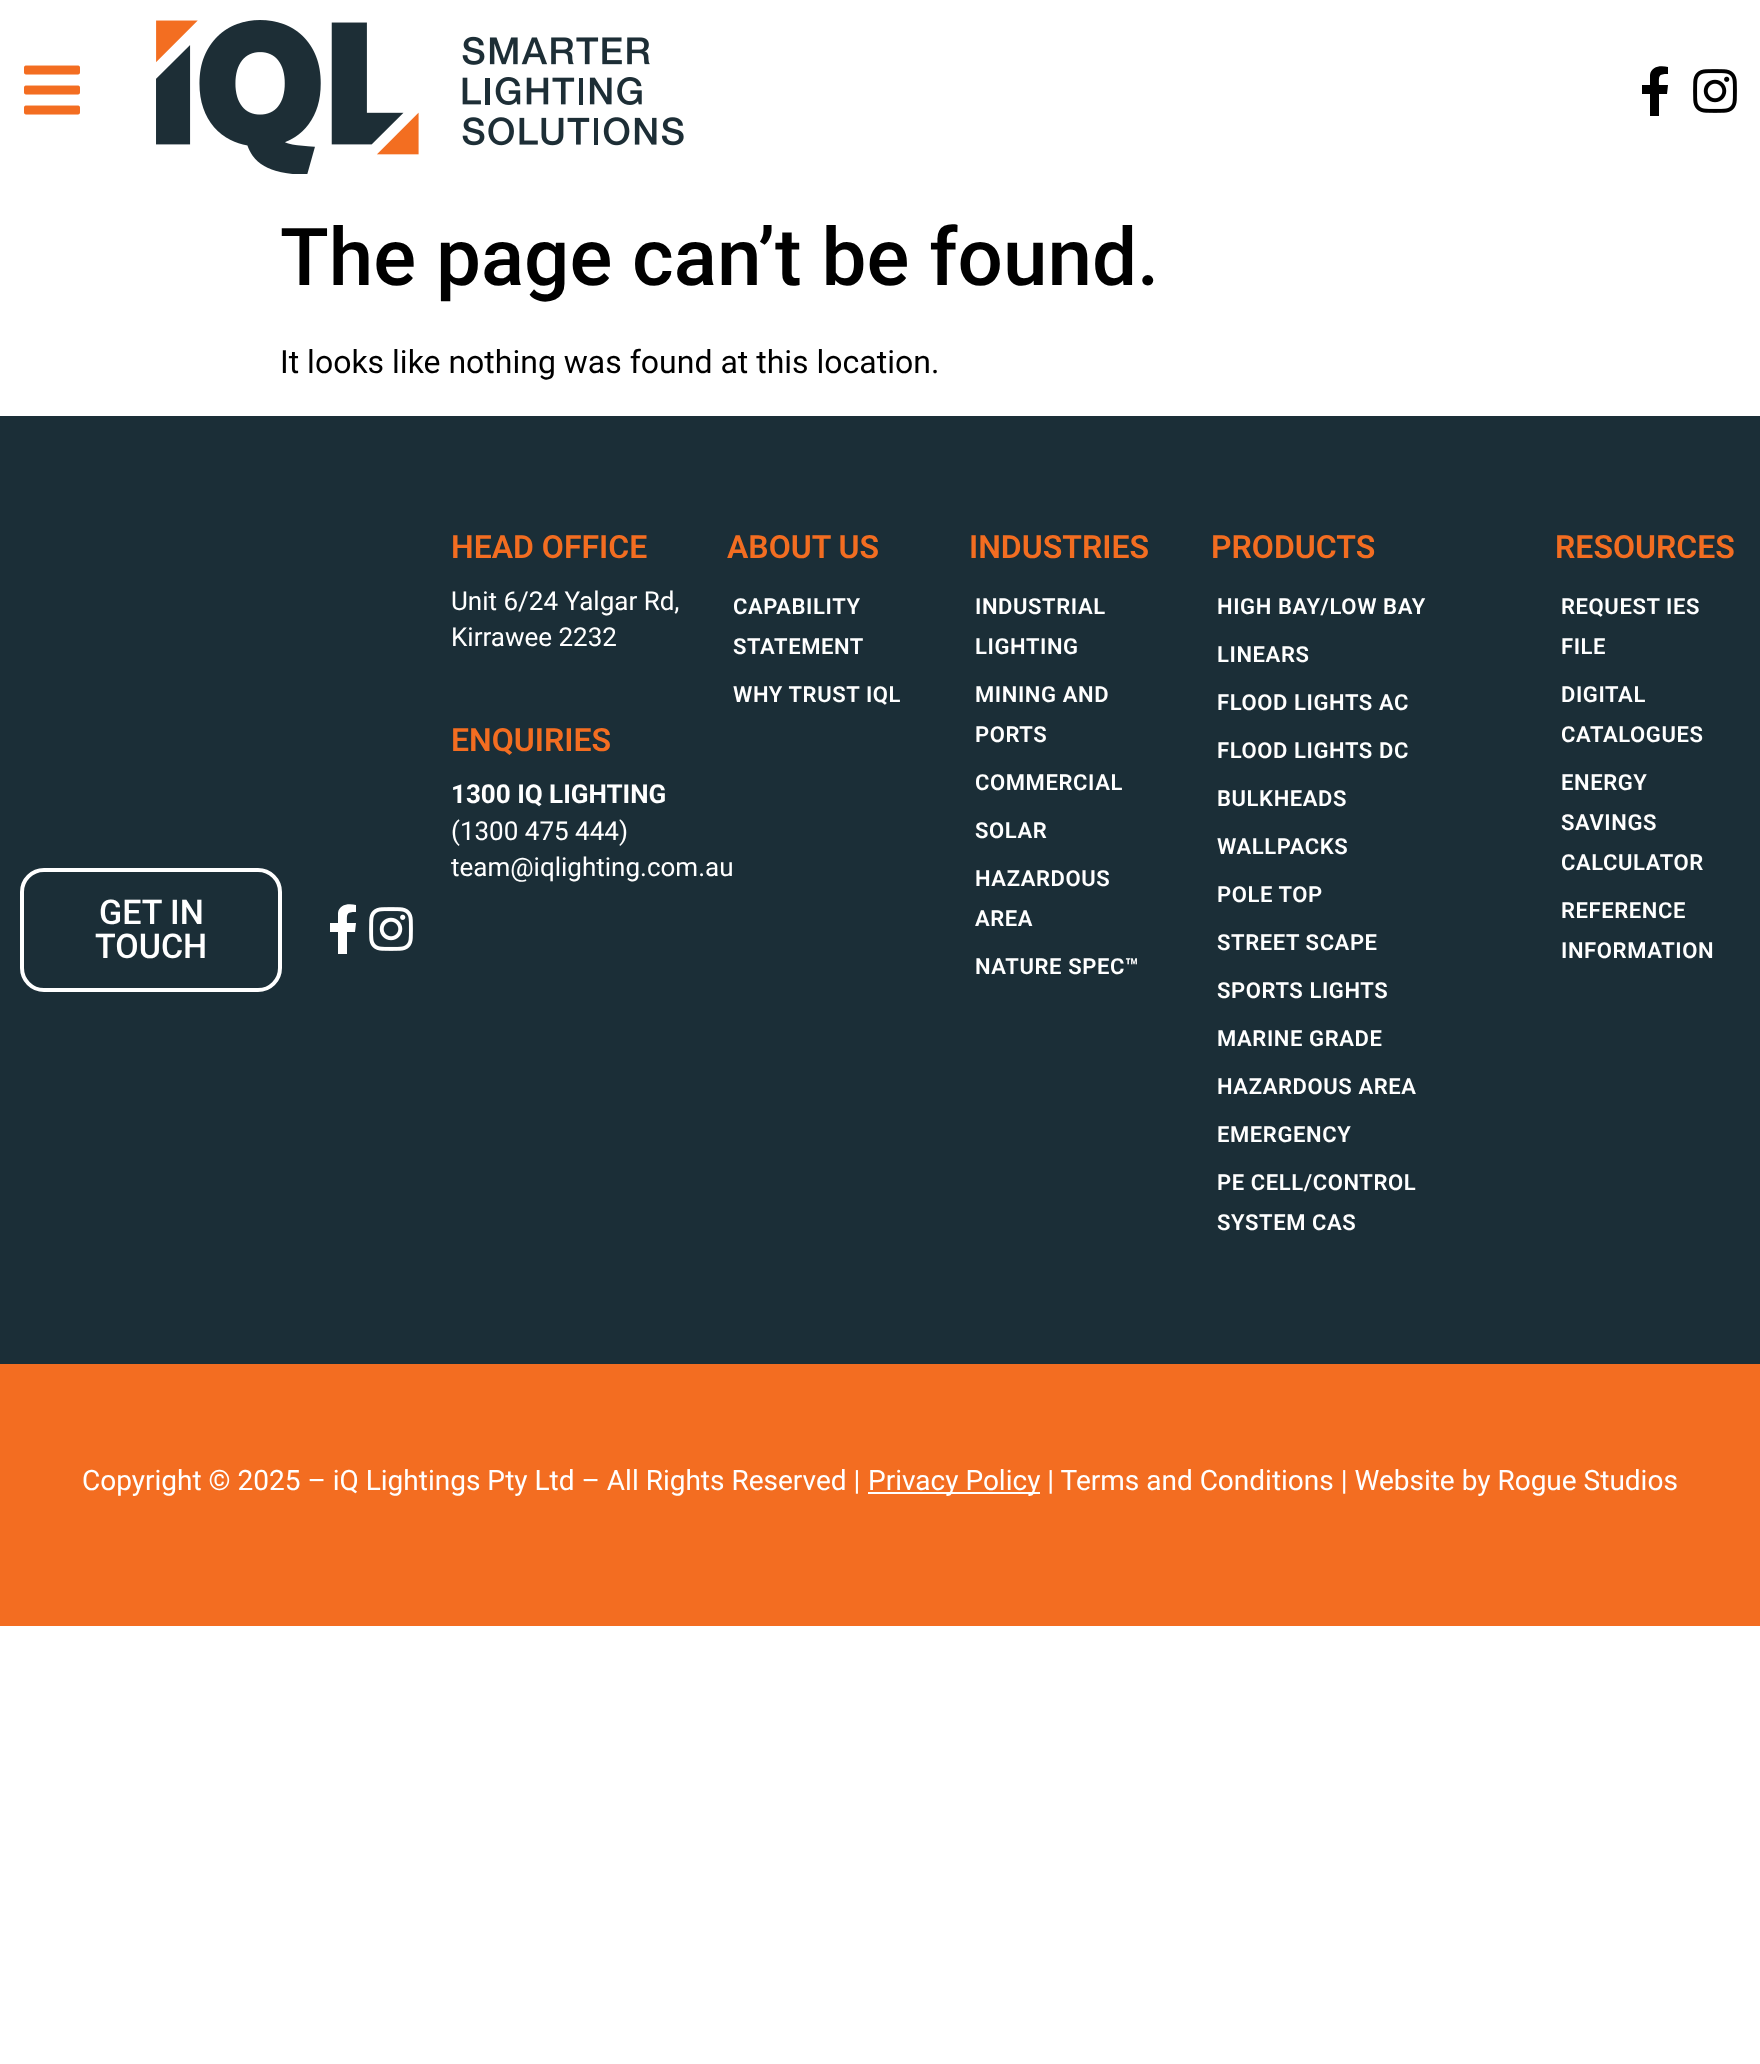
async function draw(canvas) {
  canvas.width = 1760;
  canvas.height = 2064;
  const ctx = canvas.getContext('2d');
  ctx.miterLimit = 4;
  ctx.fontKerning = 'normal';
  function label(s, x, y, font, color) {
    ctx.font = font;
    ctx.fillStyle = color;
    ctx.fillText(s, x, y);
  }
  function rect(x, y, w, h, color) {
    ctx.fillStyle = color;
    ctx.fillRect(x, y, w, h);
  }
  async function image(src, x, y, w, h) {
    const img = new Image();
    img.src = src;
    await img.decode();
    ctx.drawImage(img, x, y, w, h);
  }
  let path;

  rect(0, 0, 1760, 2064, '#fff');
  await image('assets/img1.png', 24, 65, 56, 50);
  await image('assets/img2.png', 156, 20, 528, 154);
  ctx.fillStyle = '#000';
  path = new Path2D('M1667 94L1668 85H1659C1659 76 1658 74 1668 74V67C1661 65 1651 66 1650 75V85H1642V94H1650V116H1659V94Z');
  ctx.fill(path);
  await image('assets/img3.png', 1693, 69, 44, 44);
  label('The page can’t be found.', 280, 285, '500 80px Roboto', '#000');
  label('It looks like nothing was found at this location.', 280, 373, '32px Roboto', '#000');
  rect(0, 416, 1760, 948, '#1b2e37');
  ctx.beginPath();
  ctx.roundRect(22, 870, 258, 120, 22);
  ctx.strokeStyle = '#fff';
  ctx.lineWidth = 4;
  ctx.stroke();
  label('GET IN', 99, 924, '500 34px Roboto', '#fff');
  label('TOUCH', 95, 958, '500 34px Roboto', '#fff');
  path = new Path2D('M355 932L356 923H347C347 914 346 912 356 912V905C349 903 339 904 338 913V923H330V932H338V954H347V932Z');
  ctx.fill(path);
  await image('assets/img4.png', 369, 907, 44, 44);
  label('HEAD OFFICE', 451, 558, '600 32px Roboto', '#f36d21');
  label('Unit 6/24 Yalgar Rd,', 451, 610, '26px Roboto', '#fff');
  label('Kirrawee 2232', 451, 646, '26px Roboto', '#fff');
  label('ENQUIRIES', 451, 751, '600 32px Roboto', '#f36d21');
  label('1300 IQ LIGHTING', 451, 803, 'bold 26px Roboto', '#fff');
  label('(1300 475 444)', 451, 840, '26px Roboto', '#fff');
  label('team@iqlighting.com.au', 451, 876, '26px Roboto', '#fff');
  label('ABOUT US', 727, 558, '600 32px Roboto', '#f36d21');
  ctx.letterSpacing = '0.6px';
  label('CAPABILITY', 733, 614, '600 22px Roboto', '#fff');
  label('STATEMENT', 733, 654, '600 22px Roboto', '#fff');
  label('WHY TRUST IQL', 733, 702, '600 22px Roboto', '#fff');
  ctx.letterSpacing = '0px';
  label('INDUSTRIES', 969, 558, '600 32px Roboto', '#f36d21');
  ctx.letterSpacing = '0.6px';
  label('INDUSTRIAL', 975, 614, '600 22px Roboto', '#fff');
  label('LIGHTING', 975, 654, '600 22px Roboto', '#fff');
  label('MINING AND', 975, 702, '600 22px Roboto', '#fff');
  label('PORTS', 975, 742, '600 22px Roboto', '#fff');
  label('COMMERCIAL', 975, 790, '600 22px Roboto', '#fff');
  label('SOLAR', 975, 838, '600 22px Roboto', '#fff');
  label('HAZARDOUS', 975, 886, '600 22px Roboto', '#fff');
  label('AREA', 975, 926, '600 22px Roboto', '#fff');
  label('NATURE SPEC™', 975, 974, '600 22px Roboto', '#fff');
  ctx.letterSpacing = '0px';
  label('PRODUCTS', 1211, 558, '600 32px Roboto', '#f36d21');
  ctx.letterSpacing = '0.6px';
  label('HIGH BAY/LOW BAY', 1217, 614, '600 22px Roboto', '#fff');
  label('LINEARS', 1217, 662, '600 22px Roboto', '#fff');
  label('FLOOD LIGHTS AC', 1217, 710, '600 22px Roboto', '#fff');
  label('FLOOD LIGHTS DC', 1217, 758, '600 22px Roboto', '#fff');
  label('BULKHEADS', 1217, 806, '600 22px Roboto', '#fff');
  label('WALLPACKS', 1217, 854, '600 22px Roboto', '#fff');
  label('POLE TOP', 1217, 902, '600 22px Roboto', '#fff');
  label('STREET SCAPE', 1217, 950, '600 22px Roboto', '#fff');
  label('SPORTS LIGHTS', 1217, 998, '600 22px Roboto', '#fff');
  label('MARINE GRADE', 1217, 1046, '600 22px Roboto', '#fff');
  label('HAZARDOUS AREA', 1217, 1094, '600 22px Roboto', '#fff');
  label('EMERGENCY', 1217, 1142, '600 22px Roboto', '#fff');
  label('PE CELL/CONTROL', 1217, 1190, '600 22px Roboto', '#fff');
  label('SYSTEM CAS', 1217, 1230, '600 22px Roboto', '#fff');
  ctx.letterSpacing = '0px';
  label('RESOURCES', 1555, 558, '600 32px Roboto', '#f36d21');
  ctx.letterSpacing = '0.6px';
  label('REQUEST IES', 1561, 614, '600 22px Roboto', '#fff');
  label('FILE', 1561, 654, '600 22px Roboto', '#fff');
  label('DIGITAL', 1561, 702, '600 22px Roboto', '#fff');
  label('CATALOGUES', 1561, 742, '600 22px Roboto', '#fff');
  label('ENERGY', 1561, 790, '600 22px Roboto', '#fff');
  label('SAVINGS', 1561, 830, '600 22px Roboto', '#fff');
  label('CALCULATOR', 1561, 870, '600 22px Roboto', '#fff');
  label('REFERENCE', 1561, 918, '600 22px Roboto', '#fff');
  label('INFORMATION', 1561, 958, '600 22px Roboto', '#fff');
  rect(0, 1364, 1760, 262, '#f36d21');
  ctx.letterSpacing = '0px';
  label('Copyright © 2025 – iQ Lightings Pty Ltd – All Rights Reserved |', 82, 1490, '28px Roboto', '#fff');
  rect(868, 1492, 172, 2, '#fff');
  label('Privacy Policy | Terms and Conditions | Website by Rogue Studios', 868, 1490, '28px Roboto', '#fff');
}

draw(document.querySelector('canvas'));
